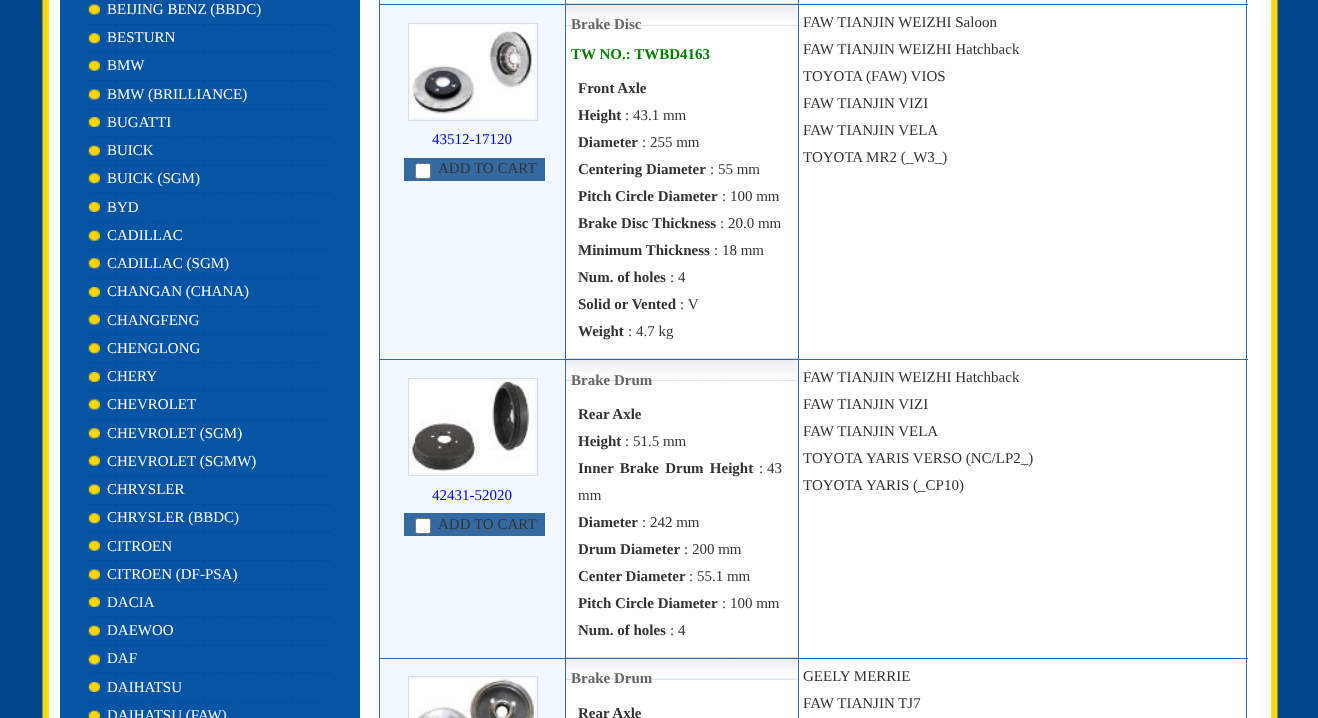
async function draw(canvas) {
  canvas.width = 1318;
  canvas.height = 718;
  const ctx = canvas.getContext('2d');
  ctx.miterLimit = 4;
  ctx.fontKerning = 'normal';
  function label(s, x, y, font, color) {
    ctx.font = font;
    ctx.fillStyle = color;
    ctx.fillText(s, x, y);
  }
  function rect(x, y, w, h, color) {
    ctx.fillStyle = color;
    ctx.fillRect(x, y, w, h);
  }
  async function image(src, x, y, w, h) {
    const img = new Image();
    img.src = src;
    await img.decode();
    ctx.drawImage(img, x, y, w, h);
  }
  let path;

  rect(0, 0, 1318, 718, '#00468c');
  await image('assets/img1.png', 39, 0, 1241, 22);
  await image('assets/img2.png', 41, 0, 1238, 718);
  rect(60, 0, 300, 718, '#0754a4');
  await image('assets/img3.png', 88, 4, 12, 11);
  path = new Path2D('M89 24.5H331');
  ctx.strokeStyle = '#004c9a';
  ctx.lineWidth = 1.2;
  ctx.setLineDash([3.75, 2.54]);
  ctx.stroke(path);
  label('BEIJING BENZ (BBDC)', 107, 14, '15px Liberation Serif', '#fff');
  await image('assets/img4.png', 88, 33, 12, 11);
  path = new Path2D('M89 52H331');
  ctx.stroke(path);
  label('BESTURN', 107, 42, '15px Liberation Serif', '#fff');
  await image('assets/img5.png', 88, 60, 12, 11);
  path = new Path2D('M89 80.5H331');
  ctx.stroke(path);
  label('BMW', 107, 70, '15px Liberation Serif', '#fff');
  await image('assets/img3.png', 88, 89, 12, 11);
  path = new Path2D('M89 109.5H331');
  ctx.stroke(path);
  label('BMW (BRILLIANCE)', 107, 99, '15px Liberation Serif', '#fff');
  await image('assets/img6.png', 88, 117, 12, 10);
  path = new Path2D('M89 137H331');
  ctx.stroke(path);
  label('BUGATTI', 107, 127, '15px Liberation Serif', '#fff');
  await image('assets/img5.png', 88, 145, 12, 11);
  path = new Path2D('M89 165.5H331');
  ctx.stroke(path);
  label('BUICK', 107, 155, '15px Liberation Serif', '#fff');
  await image('assets/img4.png', 88, 173, 12, 11);
  path = new Path2D('M89 193H331');
  ctx.stroke(path);
  label('BUICK (SGM)', 107, 183, '15px Liberation Serif', '#fff');
  await image('assets/img6.png', 88, 202, 12, 10);
  path = new Path2D('M89 222H331');
  ctx.stroke(path);
  label('BYD', 107, 212, '15px Liberation Serif', '#fff');
  await image('assets/img5.png', 88, 230, 12, 11);
  path = new Path2D('M89 249.5H331');
  ctx.stroke(path);
  label('CADILLAC', 107, 240, '15px Liberation Serif', '#fff');
  await image('assets/img4.png', 88, 258, 12, 11);
  path = new Path2D('M89 278H331');
  ctx.stroke(path);
  label('CADILLAC (SGM)', 107, 268, '15px Liberation Serif', '#fff');
  await image('assets/img6.png', 88, 287, 12, 10);
  path = new Path2D('M89 307H331');
  ctx.stroke(path);
  label('CHANGAN (CHANA)', 107, 296, '15px Liberation Serif', '#fff');
  await image('assets/img3.png', 88, 314, 12, 11);
  path = new Path2D('M89 334.5H331');
  ctx.stroke(path);
  label('CHANGFENG', 107, 325, '15px Liberation Serif', '#fff');
  await image('assets/img4.png', 88, 343, 12, 11);
  path = new Path2D('M89 363H331');
  ctx.stroke(path);
  label('CHENGLONG', 107, 353, '15px Liberation Serif', '#fff');
  await image('assets/img6.png', 88, 372, 12, 10);
  path = new Path2D('M89 390.5H331');
  ctx.stroke(path);
  label('CHERY', 107, 381, '15px Liberation Serif', '#fff');
  await image('assets/img3.png', 88, 399, 12, 11);
  path = new Path2D('M89 419.5H331');
  ctx.stroke(path);
  label('CHEVROLET', 107, 409, '15px Liberation Serif', '#fff');
  await image('assets/img4.png', 88, 428, 12, 11);
  path = new Path2D('M89 448H331');
  ctx.stroke(path);
  label('CHEVROLET (SGM)', 107, 438, '15px Liberation Serif', '#fff');
  await image('assets/img5.png', 88, 455, 12, 11);
  path = new Path2D('M89 475.5H331');
  ctx.stroke(path);
  label('CHEVROLET (SGMW)', 107, 466, '15px Liberation Serif', '#fff');
  await image('assets/img3.png', 88, 484, 12, 11);
  path = new Path2D('M89 504.5H331');
  ctx.stroke(path);
  label('CHRYSLER', 107, 494, '15px Liberation Serif', '#fff');
  await image('assets/img4.png', 88, 513, 12, 11);
  path = new Path2D('M89 532H331');
  ctx.stroke(path);
  label('CHRYSLER (BBDC)', 107, 522, '15px Liberation Serif', '#fff');
  await image('assets/img5.png', 88, 540, 12, 11);
  path = new Path2D('M89 560.5H331');
  ctx.stroke(path);
  label('CITROEN', 107, 551, '15px Liberation Serif', '#fff');
  await image('assets/img3.png', 88, 569, 12, 11);
  path = new Path2D('M89 589.5H331');
  ctx.stroke(path);
  label('CITROEN (DF-PSA)', 107, 579, '15px Liberation Serif', '#fff');
  await image('assets/img6.png', 88, 597, 12, 10);
  path = new Path2D('M89 617H331');
  ctx.stroke(path);
  label('DACIA', 107, 607, '15px Liberation Serif', '#fff');
  await image('assets/img5.png', 88, 625, 12, 11);
  path = new Path2D('M89 645.5H331');
  ctx.stroke(path);
  label('DAEWOO', 107, 635, '15px Liberation Serif', '#fff');
  await image('assets/img3.png', 88, 654, 12, 11);
  path = new Path2D('M89 673H331');
  ctx.stroke(path);
  label('DAF', 107, 663, '15px Liberation Serif', '#fff');
  await image('assets/img6.png', 88, 682, 12, 10);
  path = new Path2D('M89 702H331');
  ctx.stroke(path);
  label('DAIHATSU', 107, 692, '15px Liberation Serif', '#fff');
  await image('assets/img7.png', 88, 710, 12, 8);
  label('DAIHATSU (FAW)', 107, 720, '15px Liberation Serif', '#fff');
  rect(1246, 0, 1, 718, '#356aa0');
  rect(379, 0, 186, 4, '#f2f8ff');
  rect(379, 0, 1, 718, '#356aa0');
  rect(798, 658, 1, 60, '#356aa0');
  rect(798, 658, 450, 1, '#356aa0');
  rect(798, 359, 1, 300, '#356aa0');
  rect(798, 359, 450, 1, '#356aa0');
  rect(798, 4, 1, 356, '#356aa0');
  rect(798, 4, 450, 1, '#356aa0');
  rect(798, 0, 1, 5, '#356aa0');
  await image('assets/img9.png', 566, 3, 232, 23);
  await image('assets/img9.png', 566, 358, 232, 23);
  await image('assets/img12.png', 566, 657, 232, 23);
  rect(565, 658, 1, 60, '#356aa0');
  rect(565, 658, 234, 1, '#356aa0');
  rect(565, 359, 1, 300, '#356aa0');
  rect(565, 359, 234, 1, '#356aa0');
  rect(565, 4, 1, 356, '#356aa0');
  rect(565, 4, 234, 1, '#356aa0');
  rect(565, 0, 1, 5, '#356aa0');
  rect(379, 4, 187, 1, '#356aa0');
  rect(380, 5, 185, 354, '#f2f8ff');
  rect(379, 359, 187, 1, '#356aa0');
  ctx.strokeStyle = '#ddd';
  ctx.lineWidth = 1;
  ctx.setLineDash([]);
  ctx.strokeRect(408.5, 23.5, 129, 97);
  await image('assets/img8.png', 410, 24, 125, 94);
  label('43512-17120', 432, 144, '15px Liberation Serif', '#00f');
  rect(404, 158, 141, 23, '#356aa0');
  ctx.fillStyle = '#fff';
  ctx.beginPath();
  ctx.roundRect(415.5, 163.5, 15, 15, 2);
  ctx.fill();
  ctx.strokeStyle = '#767676';
  ctx.stroke();
  label('ADD TO CART', 438, 173, '15px Liberation Serif', '#333');
  label('Brake Disc', 571, 29, 'bold 15px Liberation Serif', '#666');
  label('TW NO.: TWBD4163', 571, 59, 'bold 15px Liberation Serif', '#008000');
  label('Front Axle', 578, 93, 'bold 15px Liberation Serif', '#333');
  label('Height', 578, 120, 'bold 15px Liberation Serif', '#333');
  label(': 43.1 mm', 625, 120, '15px Liberation Serif', '#333');
  label('Diameter', 578, 147, 'bold 15px Liberation Serif', '#333');
  label(': 255 mm', 642, 147, '15px Liberation Serif', '#333');
  label('Centering Diameter', 578, 174, 'bold 15px Liberation Serif', '#333');
  label(': 55 mm', 710, 174, '15px Liberation Serif', '#333');
  label('Pitch Circle Diameter', 578, 201, 'bold 15px Liberation Serif', '#333');
  label(': 100 mm', 722, 201, '15px Liberation Serif', '#333');
  label('Brake Disc Thickness', 578, 228, 'bold 15px Liberation Serif', '#333');
  label(': 20.0 mm', 720, 228, '15px Liberation Serif', '#333');
  label('Minimum Thickness', 578, 255, 'bold 15px Liberation Serif', '#333');
  label(': 18 mm', 714, 255, '15px Liberation Serif', '#333');
  label('Num. of holes', 578, 282, 'bold 15px Liberation Serif', '#333');
  label(': 4', 670, 282, '15px Liberation Serif', '#333');
  label('Solid or Vented', 578, 309, 'bold 15px Liberation Serif', '#333');
  label(': V', 680, 309, '15px Liberation Serif', '#333');
  label('Weight', 578, 336, 'bold 15px Liberation Serif', '#333');
  label(': 4.7 kg', 628, 336, '15px Liberation Serif', '#333');
  label('FAW TIANJIN WEIZHI Saloon', 803, 27, '15px Liberation Serif', '#333');
  label('FAW TIANJIN WEIZHI Hatchback', 803, 54, '15px Liberation Serif', '#333');
  label('TOYOTA (FAW) VIOS', 803, 81, '15px Liberation Serif', '#333');
  label('FAW TIANJIN VIZI', 803, 108, '15px Liberation Serif', '#333');
  label('FAW TIANJIN VELA', 803, 135, '15px Liberation Serif', '#333');
  label('TOYOTA MR2 (_W3_)', 803, 162, '15px Liberation Serif', '#333');
  rect(380, 360, 185, 298, '#f2f8ff');
  rect(379, 658, 187, 1, '#356aa0');
  ctx.strokeStyle = '#ddd';
  ctx.strokeRect(408.5, 378.5, 129, 97);
  await image('assets/img10.png', 410, 379, 125, 94);
  label('42431-52020', 432, 500, '15px Liberation Serif', '#00f');
  rect(404, 513, 141, 23, '#356aa0');
  ctx.fillStyle = '#fff';
  ctx.beginPath();
  ctx.roundRect(415.5, 518.5, 15, 15, 2);
  ctx.fill();
  ctx.strokeStyle = '#767676';
  ctx.stroke();
  label('ADD TO CART', 438, 529, '15px Liberation Serif', '#333');
  label('Brake Drum', 571, 385, 'bold 15px Liberation Serif', '#666');
  label('Rear Axle', 578, 419, 'bold 15px Liberation Serif', '#333');
  label('Height', 578, 446, 'bold 15px Liberation Serif', '#333');
  label(': 51.5 mm', 625, 446, '15px Liberation Serif', '#333');
  ctx.wordSpacing = '2.5px';
  label('Inner Brake Drum Height', 578, 473, 'bold 15px Liberation Serif', '#333');
  ctx.wordSpacing = '0px';
  label(': 43', 759, 473, '15px Liberation Serif', '#333');
  label('mm', 578, 500, '15px Liberation Serif', '#333');
  label('Diameter', 578, 527, 'bold 15px Liberation Serif', '#333');
  label(': 242 mm', 642, 527, '15px Liberation Serif', '#333');
  label('Drum Diameter', 578, 554, 'bold 15px Liberation Serif', '#333');
  label(': 200 mm', 684, 554, '15px Liberation Serif', '#333');
  label('Center Diameter', 578, 581, 'bold 15px Liberation Serif', '#333');
  label(': 55.1 mm', 689, 581, '15px Liberation Serif', '#333');
  label('Pitch Circle Diameter', 578, 608, 'bold 15px Liberation Serif', '#333');
  label(': 100 mm', 722, 608, '15px Liberation Serif', '#333');
  label('Num. of holes', 578, 635, 'bold 15px Liberation Serif', '#333');
  label(': 4', 670, 635, '15px Liberation Serif', '#333');
  label('FAW TIANJIN WEIZHI Hatchback', 803, 382, '15px Liberation Serif', '#333');
  label('FAW TIANJIN VIZI', 803, 409, '15px Liberation Serif', '#333');
  label('FAW TIANJIN VELA', 803, 436, '15px Liberation Serif', '#333');
  label('TOYOTA', 803, 463, '15px Liberation Serif', '#333');
  label('YARIS VERSO (NC/LP2_)', 866, 463, '15px Liberation Serif', '#333');
  label('TOYOTA', 803, 490, '15px Liberation Serif', '#333');
  label('YARIS (_CP10)', 866, 490, '15px Liberation Serif', '#333');
  rect(380, 659, 185, 59, '#f2f8ff');
  ctx.strokeStyle = '#ddd';
  ctx.strokeRect(408.5, 676.5, 129, 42);
  await image('assets/img11.png', 410, 678, 125, 40);
  label('Brake Drum', 571, 683, 'bold 15px Liberation Serif', '#666');
  label('Rear Axle', 578, 718, 'bold 15px Liberation Serif', '#333');
  label('GEELY MERRIE', 803, 681, '15px Liberation Serif', '#333');
  label('FAW TIANJIN TJ7', 803, 708, '15px Liberation Serif', '#333');
}

draw(document.querySelector('canvas'));
